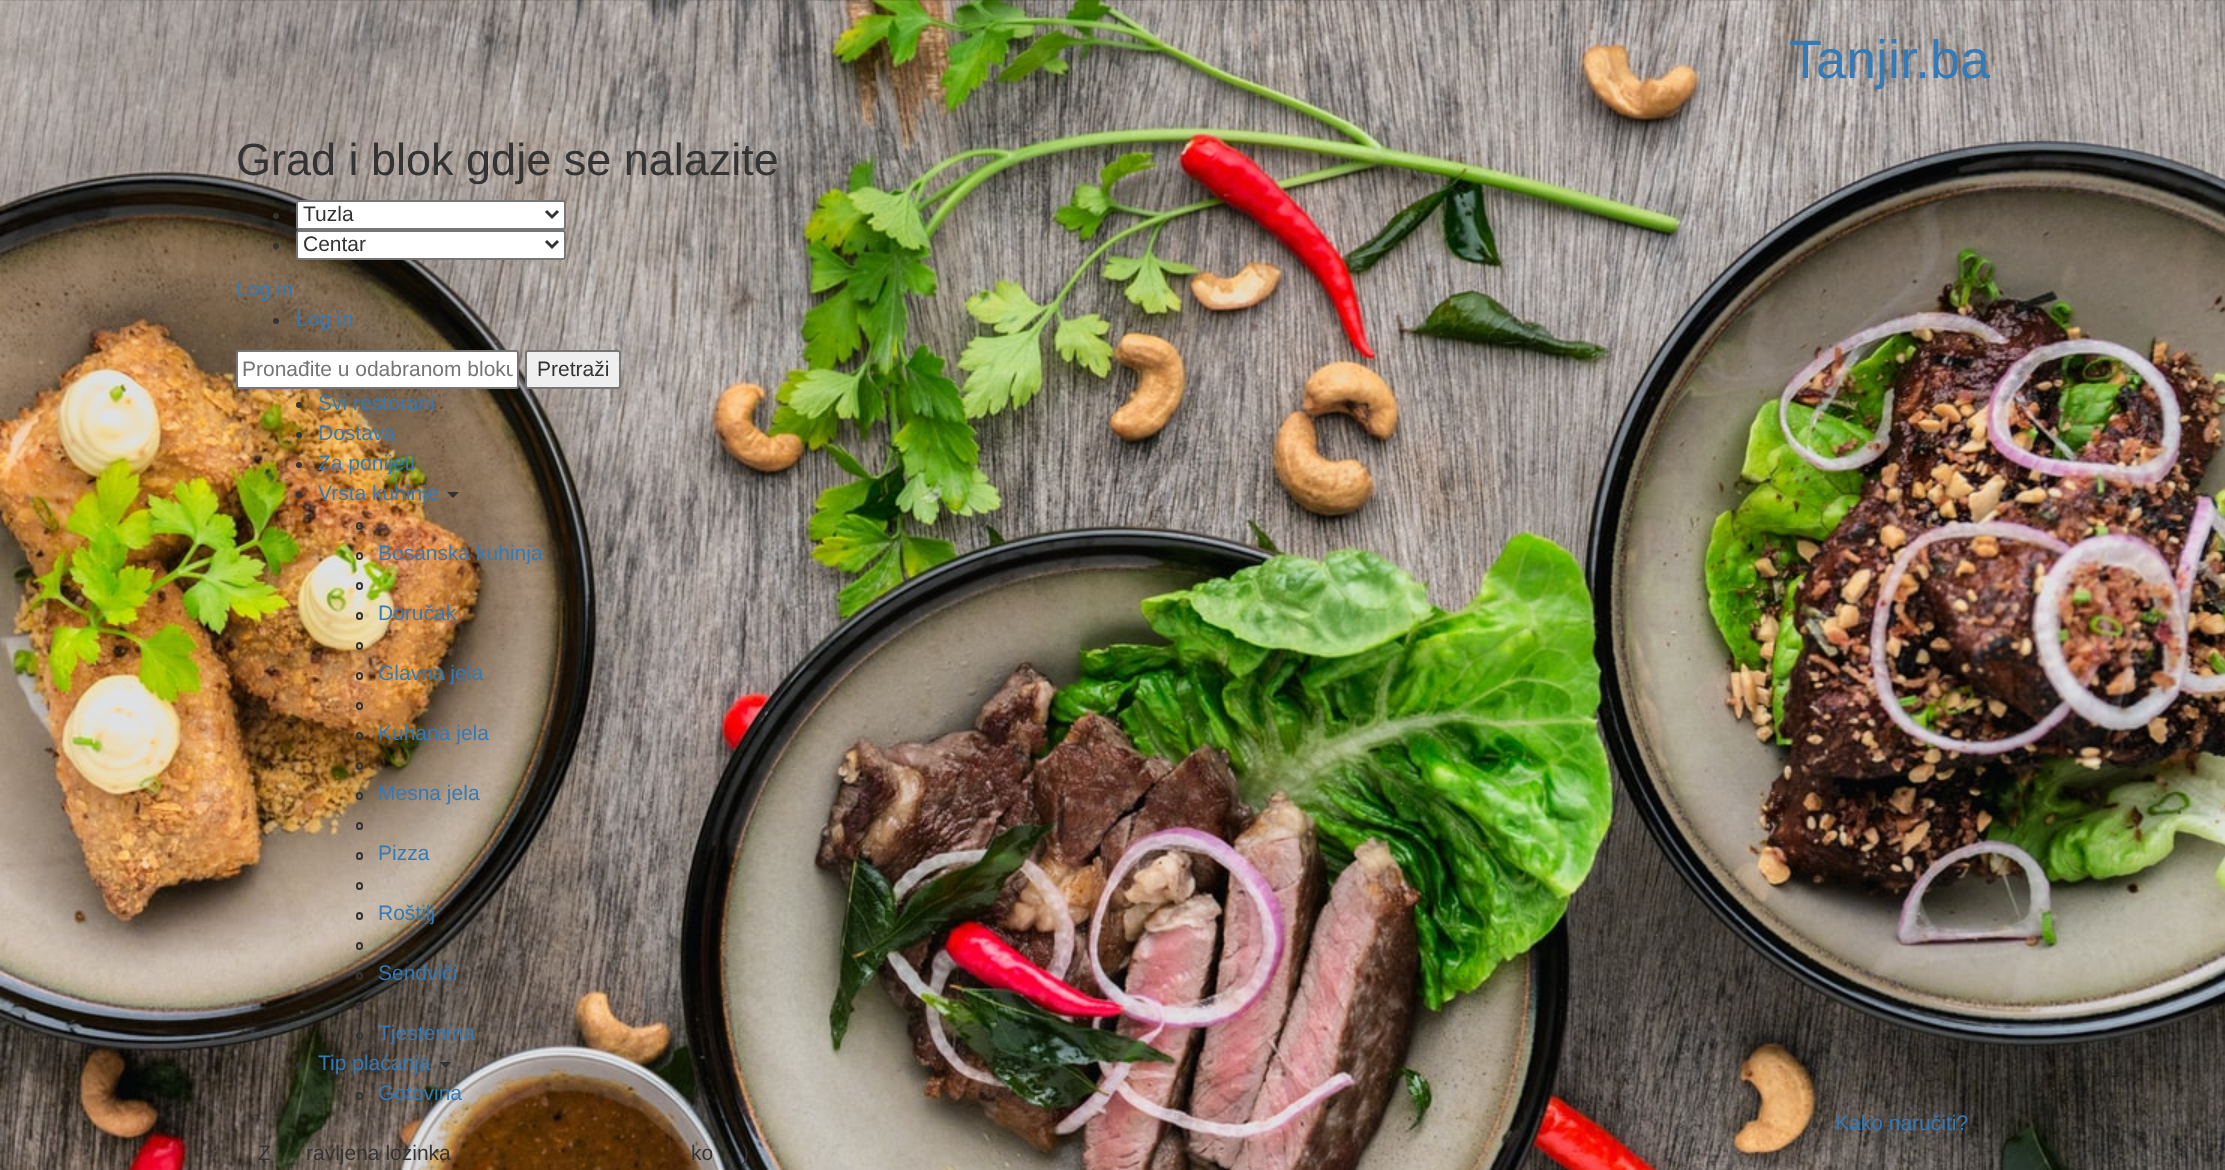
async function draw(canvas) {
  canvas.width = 2225;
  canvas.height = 1170;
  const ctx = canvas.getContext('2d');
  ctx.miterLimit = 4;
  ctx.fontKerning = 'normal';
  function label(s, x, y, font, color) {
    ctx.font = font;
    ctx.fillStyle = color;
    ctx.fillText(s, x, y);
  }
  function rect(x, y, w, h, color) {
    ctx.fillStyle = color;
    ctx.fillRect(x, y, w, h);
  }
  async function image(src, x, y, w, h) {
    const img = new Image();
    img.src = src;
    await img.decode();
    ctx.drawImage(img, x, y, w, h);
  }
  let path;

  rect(0, 0, 2225, 1170, '#fff');
  await image('assets/img1.png', 0, 0, 2225, 1170);
  label('Tanjir.ba', 1789, 78, '54px Liberation Sans', '#337ab7');
  label('Grad i blok gdje se nalazite', 236, 175, '45px Liberation Sans', '#333');
  ctx.beginPath();
  ctx.arc(276, 216, 3, 0, 2 * Math.PI);
  ctx.fill();
  ctx.fillStyle = '#fff';
  ctx.beginPath();
  ctx.roundRect(297, 201, 268, 28, 2);
  ctx.fill();
  ctx.strokeStyle = '#767676';
  ctx.lineWidth = 2;
  ctx.stroke();
  path = new Path2D('M546 211L552 217L558 211');
  ctx.strokeStyle = '#333';
  ctx.lineWidth = 3;
  ctx.stroke(path);
  label('Tuzla', 303, 221, '21px Liberation Sans', '#333');
  ctx.beginPath();
  ctx.arc(276, 246, 3, 0, 2 * Math.PI);
  ctx.fill();
  ctx.fillStyle = '#fff';
  ctx.beginPath();
  ctx.roundRect(297, 231, 268, 28, 2);
  ctx.fill();
  ctx.strokeStyle = '#767676';
  ctx.lineWidth = 2;
  ctx.stroke();
  path = new Path2D('M546 241L552 247L558 241');
  ctx.strokeStyle = '#333';
  ctx.lineWidth = 3;
  ctx.stroke(path);
  label('Centar', 303, 251, '21px Liberation Sans', '#333');
  label('Log in', 236, 296, '21px Liberation Sans', '#337ab7');
  ctx.fillStyle = '#333';
  ctx.beginPath();
  ctx.arc(276, 321, 3, 0, 2 * Math.PI);
  ctx.fill();
  label('Log in', 296, 326, '21px Liberation Sans', '#337ab7');
  ctx.fillStyle = '#fff';
  ctx.beginPath();
  ctx.roundRect(237, 351, 281, 37, 2);
  ctx.fill();
  ctx.strokeStyle = '#767676';
  ctx.lineWidth = 2;
  ctx.stroke();
  ctx.save();
  ctx.beginPath();
  ctx.rect(242, 357, 271, 24);
  ctx.clip();
  label('Pronađite u odabranom bloku', 242, 376, '21px Liberation Sans', '#757575');
  ctx.restore();
  ctx.fillStyle = '#efefef';
  ctx.beginPath();
  ctx.roundRect(526, 351, 94, 37, 2);
  ctx.fill();
  ctx.stroke();
  label('Pretraži', 537, 376, '21px Liberation Sans', '#333');
  ctx.beginPath();
  ctx.arc(299, 405, 3, 0, 2 * Math.PI);
  ctx.fill();
  label('Svi restorani', 318, 410, '21px Liberation Sans', '#337ab7');
  ctx.fillStyle = '#333';
  ctx.beginPath();
  ctx.arc(299, 435, 3, 0, 2 * Math.PI);
  ctx.fill();
  label('Dostava', 318, 440, '21px Liberation Sans', '#337ab7');
  ctx.fillStyle = '#333';
  ctx.beginPath();
  ctx.arc(299, 465, 3, 0, 2 * Math.PI);
  ctx.fill();
  label('Za ponijeti', 318, 470, '21px Liberation Sans', '#337ab7');
  ctx.fillStyle = '#333';
  ctx.beginPath();
  ctx.arc(299, 495, 3, 0, 2 * Math.PI);
  ctx.fill();
  label('Vrsta kuhinje', 318, 500, '21px Liberation Sans', '#337ab7');
  ctx.fillStyle = '#333';
  path = new Path2D('M447 492H459L453 498Z');
  ctx.fill(path);
  ctx.beginPath();
  ctx.roundRect(357, 523, 5, 6, 2.5);
  ctx.strokeStyle = '#333';
  ctx.stroke();
  ctx.beginPath();
  ctx.roundRect(357, 553, 5, 6, 2.5);
  ctx.stroke();
  label('Bosanska kuhinja', 378, 560, '21px Liberation Sans', '#337ab7');
  ctx.beginPath();
  ctx.roundRect(357, 583, 5, 6, 2.5);
  ctx.stroke();
  ctx.beginPath();
  ctx.roundRect(357, 613, 5, 6, 2.5);
  ctx.stroke();
  label('Doručak', 378, 620, '21px Liberation Sans', '#337ab7');
  ctx.beginPath();
  ctx.roundRect(357, 643, 5, 6, 2.5);
  ctx.stroke();
  ctx.beginPath();
  ctx.roundRect(357, 673, 5, 6, 2.5);
  ctx.stroke();
  label('Glavna jela', 378, 680, '21px Liberation Sans', '#337ab7');
  ctx.beginPath();
  ctx.roundRect(357, 703, 5, 6, 2.5);
  ctx.stroke();
  ctx.beginPath();
  ctx.roundRect(357, 733, 5, 6, 2.5);
  ctx.stroke();
  label('Kuhana jela', 378, 740, '21px Liberation Sans', '#337ab7');
  ctx.beginPath();
  ctx.roundRect(357, 763, 5, 6, 2.5);
  ctx.stroke();
  ctx.beginPath();
  ctx.roundRect(357, 793, 5, 6, 2.5);
  ctx.stroke();
  label('Mesna jela', 378, 800, '21px Liberation Sans', '#337ab7');
  ctx.beginPath();
  ctx.roundRect(357, 823, 5, 6, 2.5);
  ctx.stroke();
  ctx.beginPath();
  ctx.roundRect(357, 853, 5, 6, 2.5);
  ctx.stroke();
  label('Pizza', 378, 860, '21px Liberation Sans', '#337ab7');
  ctx.beginPath();
  ctx.roundRect(357, 883, 5, 6, 2.5);
  ctx.stroke();
  ctx.beginPath();
  ctx.roundRect(357, 913, 5, 6, 2.5);
  ctx.stroke();
  label('Roštilj', 378, 920, '21px Liberation Sans', '#337ab7');
  ctx.beginPath();
  ctx.roundRect(357, 943, 5, 6, 2.5);
  ctx.stroke();
  ctx.beginPath();
  ctx.roundRect(357, 973, 5, 6, 2.5);
  ctx.stroke();
  label('Sendviči', 378, 980, '21px Liberation Sans', '#337ab7');
  ctx.beginPath();
  ctx.roundRect(357, 1003, 5, 6, 2.5);
  ctx.stroke();
  ctx.beginPath();
  ctx.roundRect(357, 1033, 5, 6, 2.5);
  ctx.stroke();
  label('Tjestenina', 378, 1040, '21px Liberation Sans', '#337ab7');
  ctx.fillStyle = '#333';
  ctx.beginPath();
  ctx.arc(299, 1065, 3, 0, 2 * Math.PI);
  ctx.fill();
  label('Tip plaćanja', 318, 1070, '21px Liberation Sans', '#337ab7');
  ctx.fillStyle = '#333';
  path = new Path2D('M439.5 1062H451.5L445.5 1068Z');
  ctx.fill(path);
  ctx.beginPath();
  ctx.roundRect(357, 1093, 5, 6, 2.5);
  ctx.stroke();
  label('Gotovina', 378, 1100, '21px Liberation Sans', '#337ab7');
  ctx.fillStyle = '#333';
  ctx.beginPath();
  ctx.arc(1815, 1125, 3, 0, 2 * Math.PI);
  ctx.fill();
  label('Kako naručiti?', 1835, 1130, '21px Liberation Sans', '#337ab7');
  label('Z', 258, 1160, '21px Liberation Sans', '#333');
  label('ravljena lozinka', 306, 1160, '21px Liberation Sans', '#333');
  label('ko', 691, 1160, '21px Liberation Sans', '#333');
  label(')', 742, 1160, '21px Liberation Sans', '#333');
}

draw(document.querySelector('canvas'));
